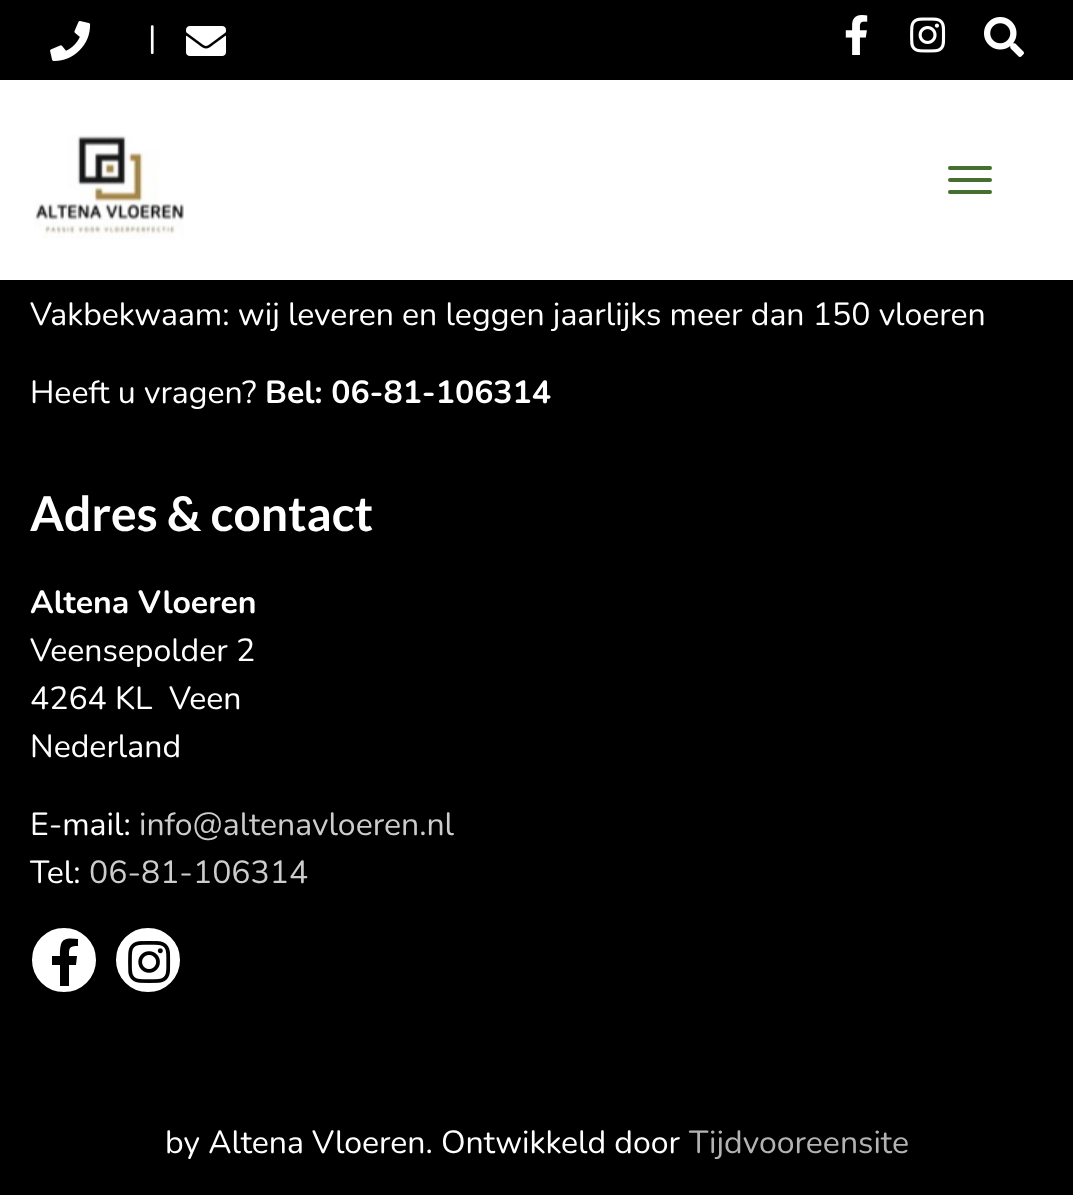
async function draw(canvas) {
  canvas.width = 1073;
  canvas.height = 1195;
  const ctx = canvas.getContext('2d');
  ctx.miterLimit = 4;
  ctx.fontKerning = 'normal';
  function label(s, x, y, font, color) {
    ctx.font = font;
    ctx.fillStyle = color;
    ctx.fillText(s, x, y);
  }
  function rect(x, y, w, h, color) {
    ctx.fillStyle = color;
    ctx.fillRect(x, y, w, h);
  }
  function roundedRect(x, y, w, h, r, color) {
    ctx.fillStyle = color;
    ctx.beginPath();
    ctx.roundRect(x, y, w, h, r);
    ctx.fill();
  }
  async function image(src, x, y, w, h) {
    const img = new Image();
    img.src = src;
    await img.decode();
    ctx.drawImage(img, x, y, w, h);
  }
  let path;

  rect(0, 0, 1073, 1195, '#000');
  await image('assets/img1.png', 50, 21, 41, 40);
  label('|', 148, 48, '32px Nunito', '#fff');
  await image('assets/img2.png', 186, 26, 40, 30);
  await image('assets/img3.png', 845, 15, 23, 40);
  await image('assets/img4.png', 910, 17, 36, 36);
  await image('assets/img5.png', 984, 17, 40, 40);
  rect(0, 80, 1073, 200, '#fff');
  await image('assets/img6.png', 34, 135, 150, 104);
  roundedRect(948, 166, 44, 4, 2, '#466e30');
  roundedRect(948, 178, 44, 4, 2, '#466e30');
  roundedRect(948, 190, 44, 4, 2, '#466e30');
  label('Vakbekwaam: wij leveren en leggen jaarlijks meer dan 150 vloeren', 30, 325, '32px Nunito', '#fff');
  label('Heeft u vragen?', 30, 403, '32px Nunito', '#fff');
  label('Bel: 06-81-106314', 265, 403, 'bold 32px Nunito', '#fff');
  label('Adres & contact', 30, 531, 'bold 48px Lato', '#fff');
  label('Altena Vloeren', 30, 613, 'bold 32px Nunito', '#fff');
  label('Veensepolder 2', 30, 661, '32px Nunito', '#fff');
  label('4264 KL', 30, 709, '32px Nunito', '#fff');
  label('Veen', 169, 709, '32px Nunito', '#fff');
  label('Nederland', 30, 757, '32px Nunito', '#fff');
  label('E-mail:', 30, 835, '32px Nunito', '#fff');
  label('info@altenavloeren.nl', 139, 835, '32px Nunito', '#ccc');
  label('Tel:', 30, 883, '32px Nunito', '#fff');
  label('06-81-106314', 89, 883, '32px Nunito', '#ccc');
  ctx.fillStyle = '#fff';
  ctx.beginPath();
  ctx.arc(64, 960, 33, 0, 2 * Math.PI);
  ctx.fill();
  ctx.strokeStyle = '#000';
  ctx.lineWidth = 2;
  ctx.stroke();
  ctx.fillStyle = '#000';
  path = new Path2D('M76 965H69V986H60V965H52V956H60C60 940 62 937 78 939V946C69 946 69 948 69 956H77Z');
  ctx.fill(path);
  ctx.fillStyle = '#fff';
  ctx.beginPath();
  ctx.arc(148, 960, 33, 0, 2 * Math.PI);
  ctx.fill();
  ctx.stroke();
  await image('assets/img7.png', 128, 941, 43, 42);
  label('by Altena Vloeren. Ontwikkeld door', 165, 1153, '32px Nunito', '#fff');
  label('Tijdvooreensite', 689, 1153, '32px Nunito', '#b3b3b3');
}

draw(document.querySelector('canvas'));
